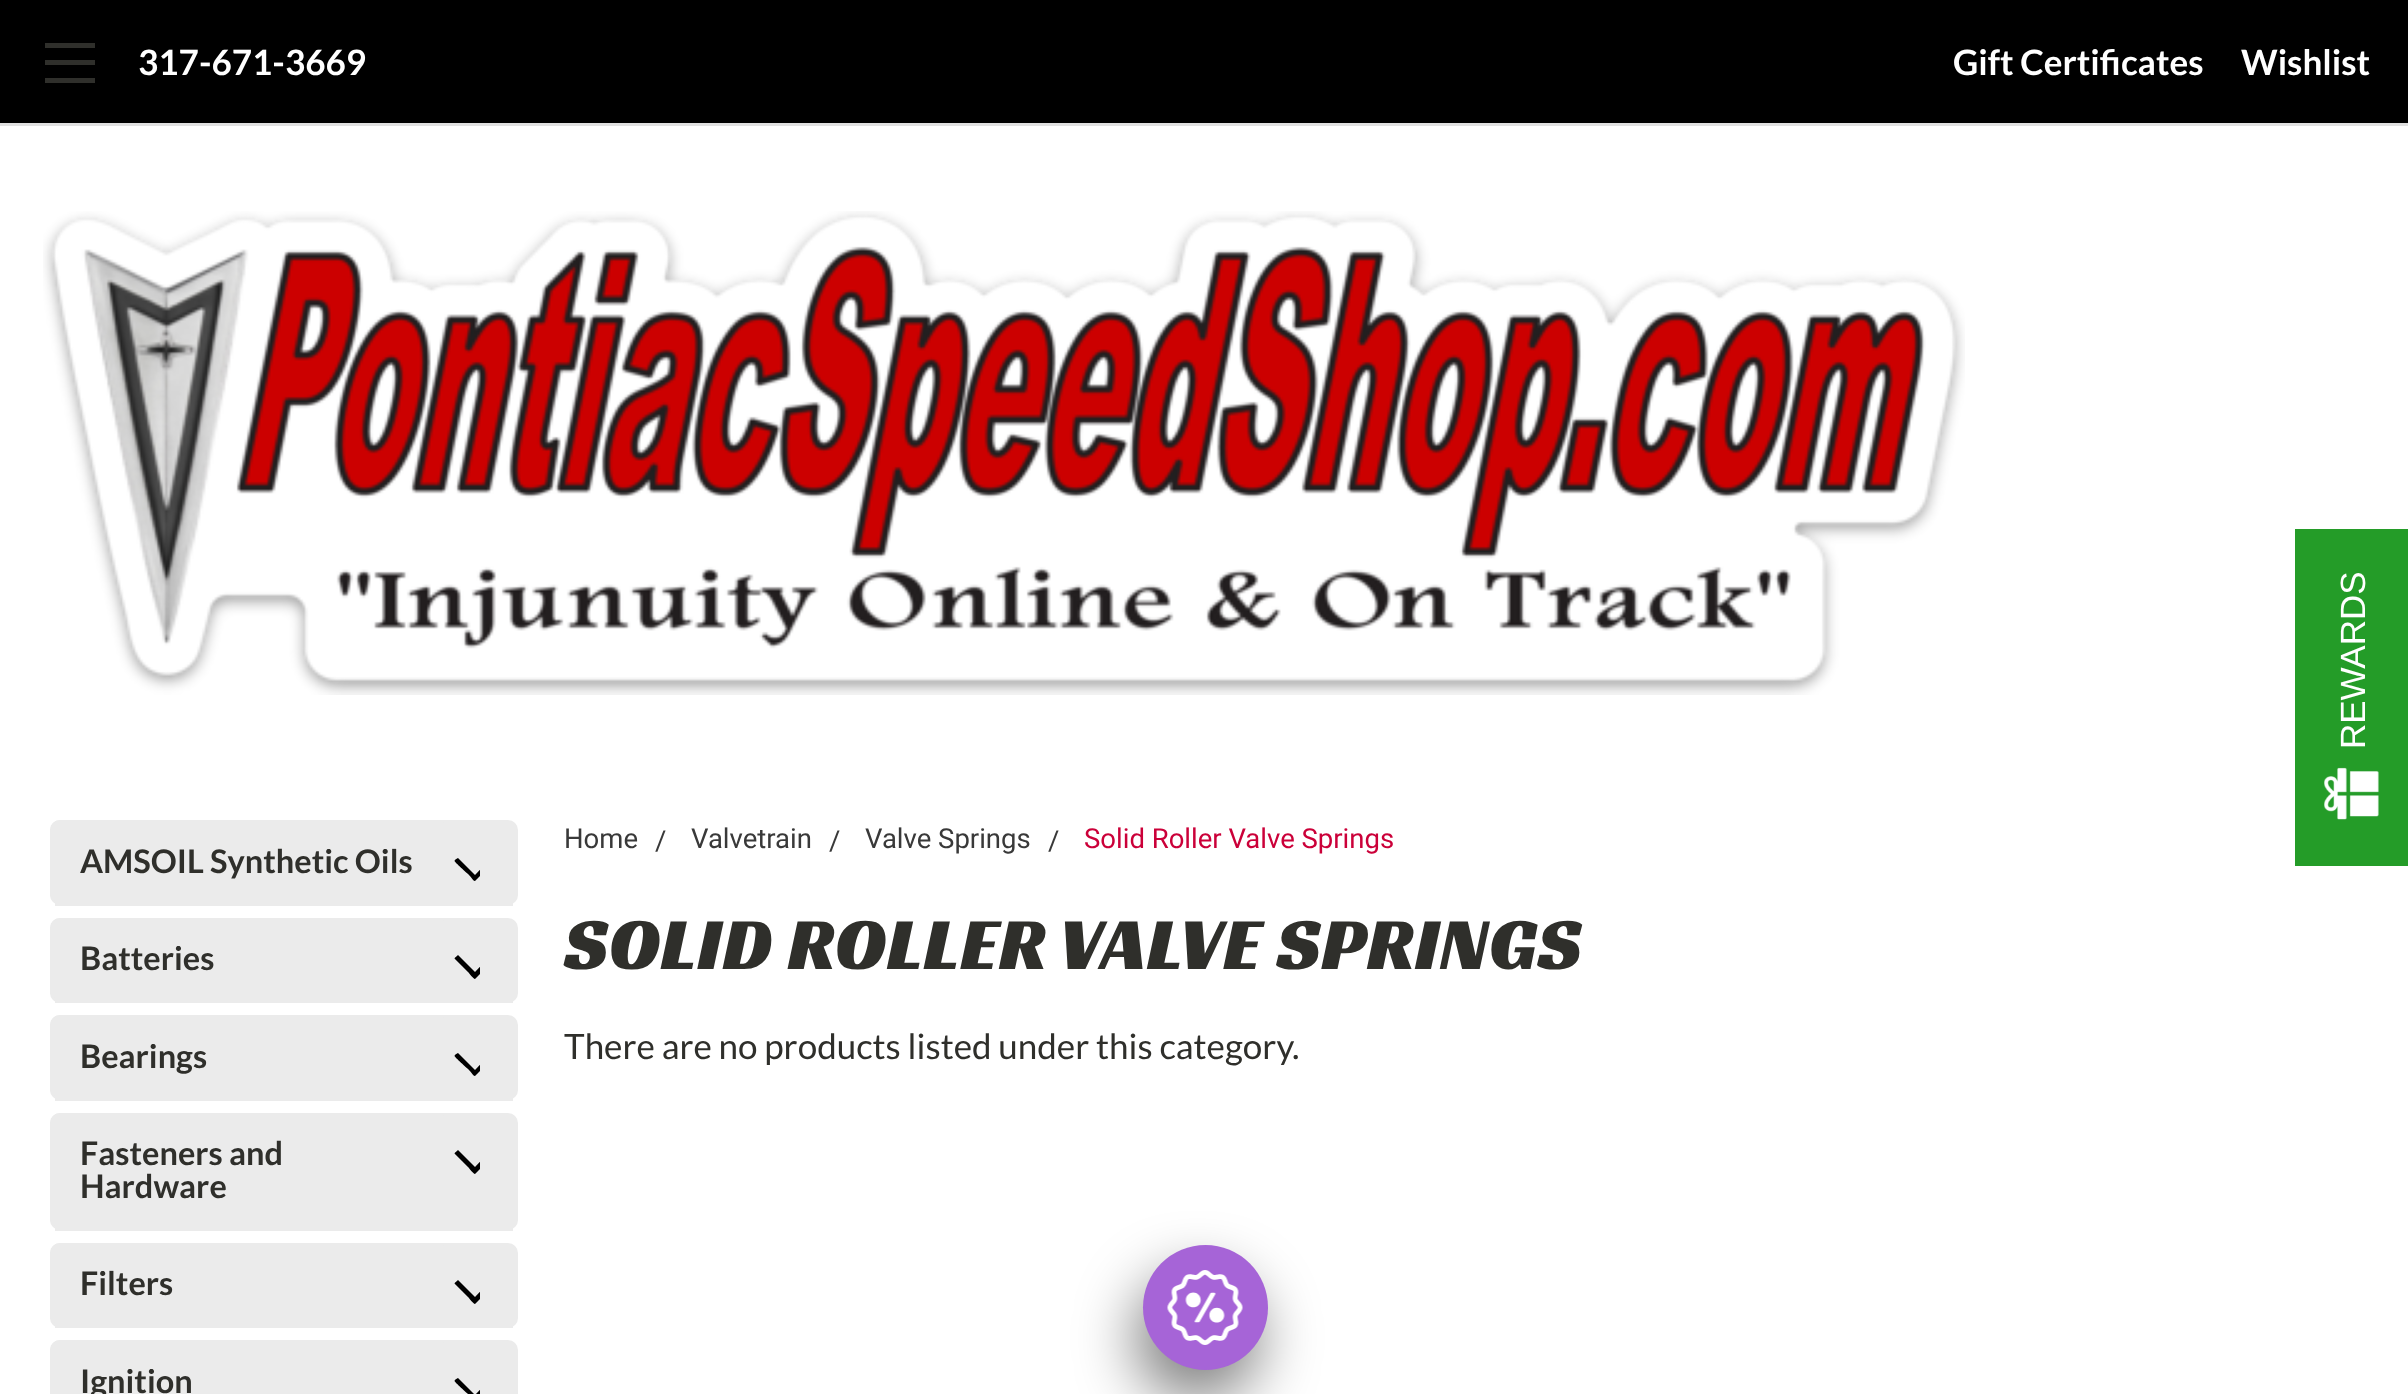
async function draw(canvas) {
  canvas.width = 2408;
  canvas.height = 1394;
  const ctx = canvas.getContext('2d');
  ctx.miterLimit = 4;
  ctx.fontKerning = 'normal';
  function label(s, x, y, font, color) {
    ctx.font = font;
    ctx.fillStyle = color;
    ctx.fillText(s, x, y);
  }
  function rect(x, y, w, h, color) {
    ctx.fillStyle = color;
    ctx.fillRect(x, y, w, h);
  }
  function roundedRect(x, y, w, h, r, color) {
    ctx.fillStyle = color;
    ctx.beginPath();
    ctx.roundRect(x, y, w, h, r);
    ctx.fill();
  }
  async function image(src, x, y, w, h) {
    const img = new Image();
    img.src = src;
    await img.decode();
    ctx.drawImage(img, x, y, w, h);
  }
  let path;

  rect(0, 0, 2408, 1394, '#fff');
  rect(0, 0, 2408, 123, '#000');
  rect(0, 123, 2408, 3, '#e0e0e0');
  rect(45, 60, 50, 5, '#2f2f2b');
  rect(45, 43, 50, 5, '#2f2f2b');
  rect(45, 78, 50, 5, '#2f2f2b');
  label('317-671-3669', 138, 75, 'bold 35px Lato', '#fff');
  label('Gift Certificates', 1953, 75, 'bold 35px Lato', '#fff');
  label('Wishlist', 2241, 75, 'bold 35px Lato', '#fff');
  await image('assets/img1.png', 43, 211, 1922, 484);
  rect(2295, 529, 113, 337, '#249c28');
  ctx.font = '35px Liberation Sans';
  ctx.fillStyle = '#fff';
  ctx.save();
  ctx.translate(2365, 749);
  ctx.rotate(-90 * Math.PI / 180);
  ctx.fillText('REWARDS', 0, 0);
  ctx.restore();
  await image('assets/img2.png', 2324, 767, 55, 53);
  roundedRect(50, 820, 468, 85, 10, '#ebebeb');
  rect(55, 903, 458, 3, '#ebebeb');
  roundedRect(50, 820, 398, 83, 10, '#ebebeb');
  label('AMSOIL Synthetic Oils', 80, 873, 'bold 32.5px Lato', '#2f2f2b');
  ctx.save();
  ctx.beginPath();
  ctx.rect(445, 835, 35, 60);
  ctx.clip();
  ctx.fillStyle = '#000';
  path = new Path2D('M475 881C474 882 470 875.5 468 874C467.5 873.5 454.5 862 454.5 861C454.5 859.5 457 858.5 458 858L475 875L491.5 858L493 858.5V863Z');
  ctx.fill(path);
  ctx.restore();
  roundedRect(50, 918, 468, 85, 10, '#ebebeb');
  rect(55, 1001, 458, 2, '#ebebeb');
  roundedRect(50, 918, 398, 82, 10, '#ebebeb');
  label('Batteries', 80, 970, 'bold 32.5px Lato', '#2f2f2b');
  ctx.save();
  ctx.beginPath();
  ctx.rect(445, 933, 35, 60);
  ctx.clip();
  ctx.fillStyle = '#000';
  path = new Path2D('M475 979C473.5 979 469 973 468 972L454.5 958.5C454.5 958 457.5 955.5 458 955L475 972L491.5 955L493 956V961Z');
  ctx.fill(path);
  ctx.restore();
  roundedRect(50, 1015, 468, 85, 10, '#ebebeb');
  rect(55, 1098, 458, 3, '#ebebeb');
  roundedRect(50, 1015, 398, 83, 10, '#ebebeb');
  label('Bearings', 80, 1068, 'bold 32.5px Lato', '#2f2f2b');
  ctx.save();
  ctx.beginPath();
  ctx.rect(445, 1030, 35, 60);
  ctx.clip();
  ctx.fillStyle = '#000';
  path = new Path2D('M475 1076C474 1077 470 1070.5 468 1069C467.5 1068.5 454.5 1057 454.5 1056C454.5 1054.5 457 1053.5 458 1053L475 1070L491.5 1053L493 1053.5V1058Z');
  ctx.fill(path);
  ctx.restore();
  roundedRect(50, 1113, 468, 117, 10, '#ebebeb');
  rect(55, 1228, 458, 3, '#ebebeb');
  roundedRect(50, 1113, 398, 115, 10, '#ebebeb');
  label('Fasteners and', 80, 1165, 'bold 32.5px Lato', '#2f2f2b');
  label('Hardware', 80, 1198, 'bold 32.5px Lato', '#2f2f2b');
  ctx.save();
  ctx.beginPath();
  ctx.rect(445, 1128, 35, 60);
  ctx.clip();
  ctx.fillStyle = '#000';
  path = new Path2D('M475 1174C473.5 1174 469 1168 468 1167L454.5 1153.5C454.5 1153 457.5 1150.5 458 1150L475 1167L491.5 1150L493 1151V1156Z');
  ctx.fill(path);
  ctx.restore();
  roundedRect(50, 1243, 468, 85, 10, '#ebebeb');
  rect(55, 1326, 458, 2, '#ebebeb');
  roundedRect(50, 1243, 398, 82, 10, '#ebebeb');
  label('Filters', 80, 1295, 'bold 32.5px Lato', '#2f2f2b');
  ctx.save();
  ctx.beginPath();
  ctx.rect(445, 1258, 35, 60);
  ctx.clip();
  ctx.fillStyle = '#000';
  path = new Path2D('M475 1304C473.5 1304 469 1298 468 1297L454.5 1283.5C454.5 1283 457.5 1280.5 458 1280L475 1297L491.5 1280L493 1281V1286Z');
  ctx.fill(path);
  ctx.restore();
  roundedRect(50, 1340, 468, 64, 10, '#ebebeb');
  roundedRect(50, 1340, 398, 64, 10, '#ebebeb');
  label('Ignition', 80, 1393, 'bold 32.5px Lato', '#2f2f2b');
  ctx.save();
  ctx.beginPath();
  ctx.rect(445, 1355, 35, 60);
  ctx.clip();
  ctx.fillStyle = '#000';
  path = new Path2D('M475 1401C474 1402 470 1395.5 468 1394C467.5 1393.5 454.5 1382 454.5 1381C454.5 1379.5 457 1378.5 458 1378L475 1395L491.5 1378L493 1378.5V1383Z');
  ctx.fill(path);
  ctx.restore();
  label('Home', 564, 848, '27.5px Roboto', '#393939');
  label('/', 655, 850, '27.5px Roboto', '#393939');
  label('Valvetrain', 691, 848, '27.5px Roboto', '#393939');
  label('/', 829, 850, '27.5px Roboto', '#393939');
  label('Valve Springs', 865, 848, '27.5px Roboto', '#393939');
  label('/', 1048, 850, '27.5px Roboto', '#393939');
  label('Solid Roller Valve Springs', 1084, 848, '27.5px Roboto', '#cb0039');
  ctx.letterSpacing = '0.6px';
  label('SOLID ROLLER VALVE SPRINGS', 564, 969, '75px Racing Sans One', '#2f2f2b');
  ctx.letterSpacing = '0px';
  label('There are no products listed under this category.', 564, 1059, '35px Lato', '#2f2f2b');
  ctx.fillStyle = '#00000080';
  ctx.filter = 'blur(30px)';
  ctx.beginPath();
  ctx.roundRect(1135, 1275, 125, 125, 62.5);
  ctx.fill();
  ctx.filter = 'none';
  ctx.fillStyle = '#a664d7';
  ctx.beginPath();
  ctx.arc(1205.5, 1307.5, 62.5, 0, 2 * Math.PI);
  ctx.fill();
  await image('assets/img3.png', 1167, 1270, 76, 75);
}

draw(document.querySelector('canvas'));
